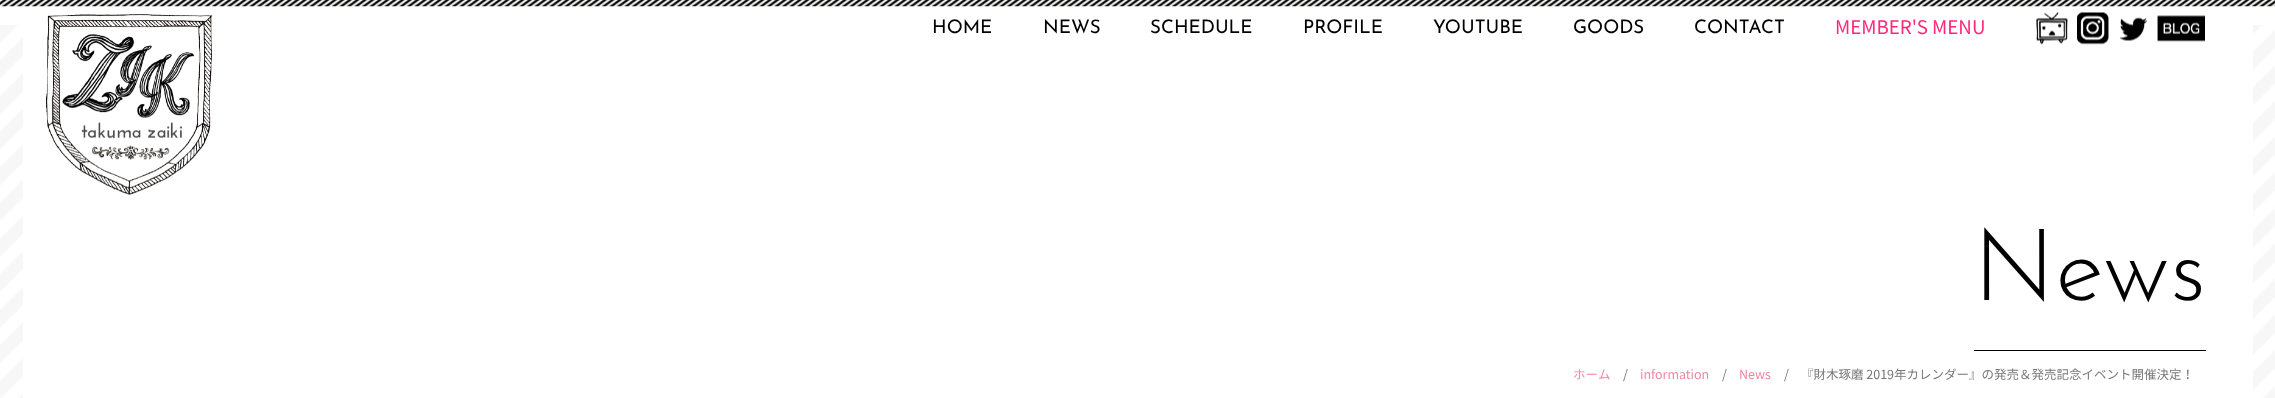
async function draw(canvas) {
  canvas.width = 2275;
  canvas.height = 398;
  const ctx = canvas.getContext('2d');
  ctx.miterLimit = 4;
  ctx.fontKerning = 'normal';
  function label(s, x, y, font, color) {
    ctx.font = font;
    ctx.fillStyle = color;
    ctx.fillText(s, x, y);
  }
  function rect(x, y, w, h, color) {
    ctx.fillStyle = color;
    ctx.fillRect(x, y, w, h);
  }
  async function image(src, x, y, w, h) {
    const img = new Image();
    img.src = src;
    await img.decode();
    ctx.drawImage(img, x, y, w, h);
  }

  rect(0, 0, 2275, 398, '#fff');
  await image('assets/img1.png', 0, 0, 2275, 7);
  await image('assets/img7.png', 0, 25, 2275, 373);
  rect(23, 25, 2230, 373, '#fff');
  await image('assets/img2.png', 46, 14, 167, 181);
  label('HOME', 932, 33, '100 18.75px Josefin Sans', '#000');
  label('NEWS', 1043, 33, '100 18.75px Josefin Sans', '#000');
  label('SCHEDULE', 1150, 33, '100 18.75px Josefin Sans', '#000');
  label('PROFILE', 1303, 33, '100 18.75px Josefin Sans', '#000');
  label('YOUTUBE', 1433, 33, '100 18.75px Josefin Sans', '#000');
  label('GOODS', 1573, 33, '100 18.75px Josefin Sans', '#000');
  label('CONTACT', 1694, 33, '100 18.75px Josefin Sans', '#000');
  label('MEMBER\'S MENU', 1835, 34, '18.75px Noto Sans JP', '#ff287b');
  await image('assets/img3.png', 2036, 12, 32, 33);
  await image('assets/img4.png', 2077, 12, 32, 33);
  await image('assets/img5.png', 2120, 17, 27, 24);
  await image('assets/img6.png', 2157, 15, 48, 27);
  rect(1974, 350, 232, 1, '#000');
  label('News', 1973, 300, '300 100px Josefin Sans', '#000');
  label('ホーム', 1573, 379, '12.5px Noto Sans JP', '#f186a4');
  label('/', 1623, 379, '12.5px Noto Sans JP', '#777');
  label('information', 1640, 379, '12.5px Noto Sans JP', '#f186a4');
  label('/', 1722, 379, '12.5px Noto Sans JP', '#777');
  label('News', 1739, 379, '12.5px Noto Sans JP', '#f186a4');
  label('/', 1784, 379, '12.5px Noto Sans JP', '#777');
  label('『財木琢磨 2019年カレンダー』の発売＆発売記念イベント開催決定！', 1801, 379, '12.5px Noto Sans JP', '#777');
}

draw(document.querySelector('canvas'));
